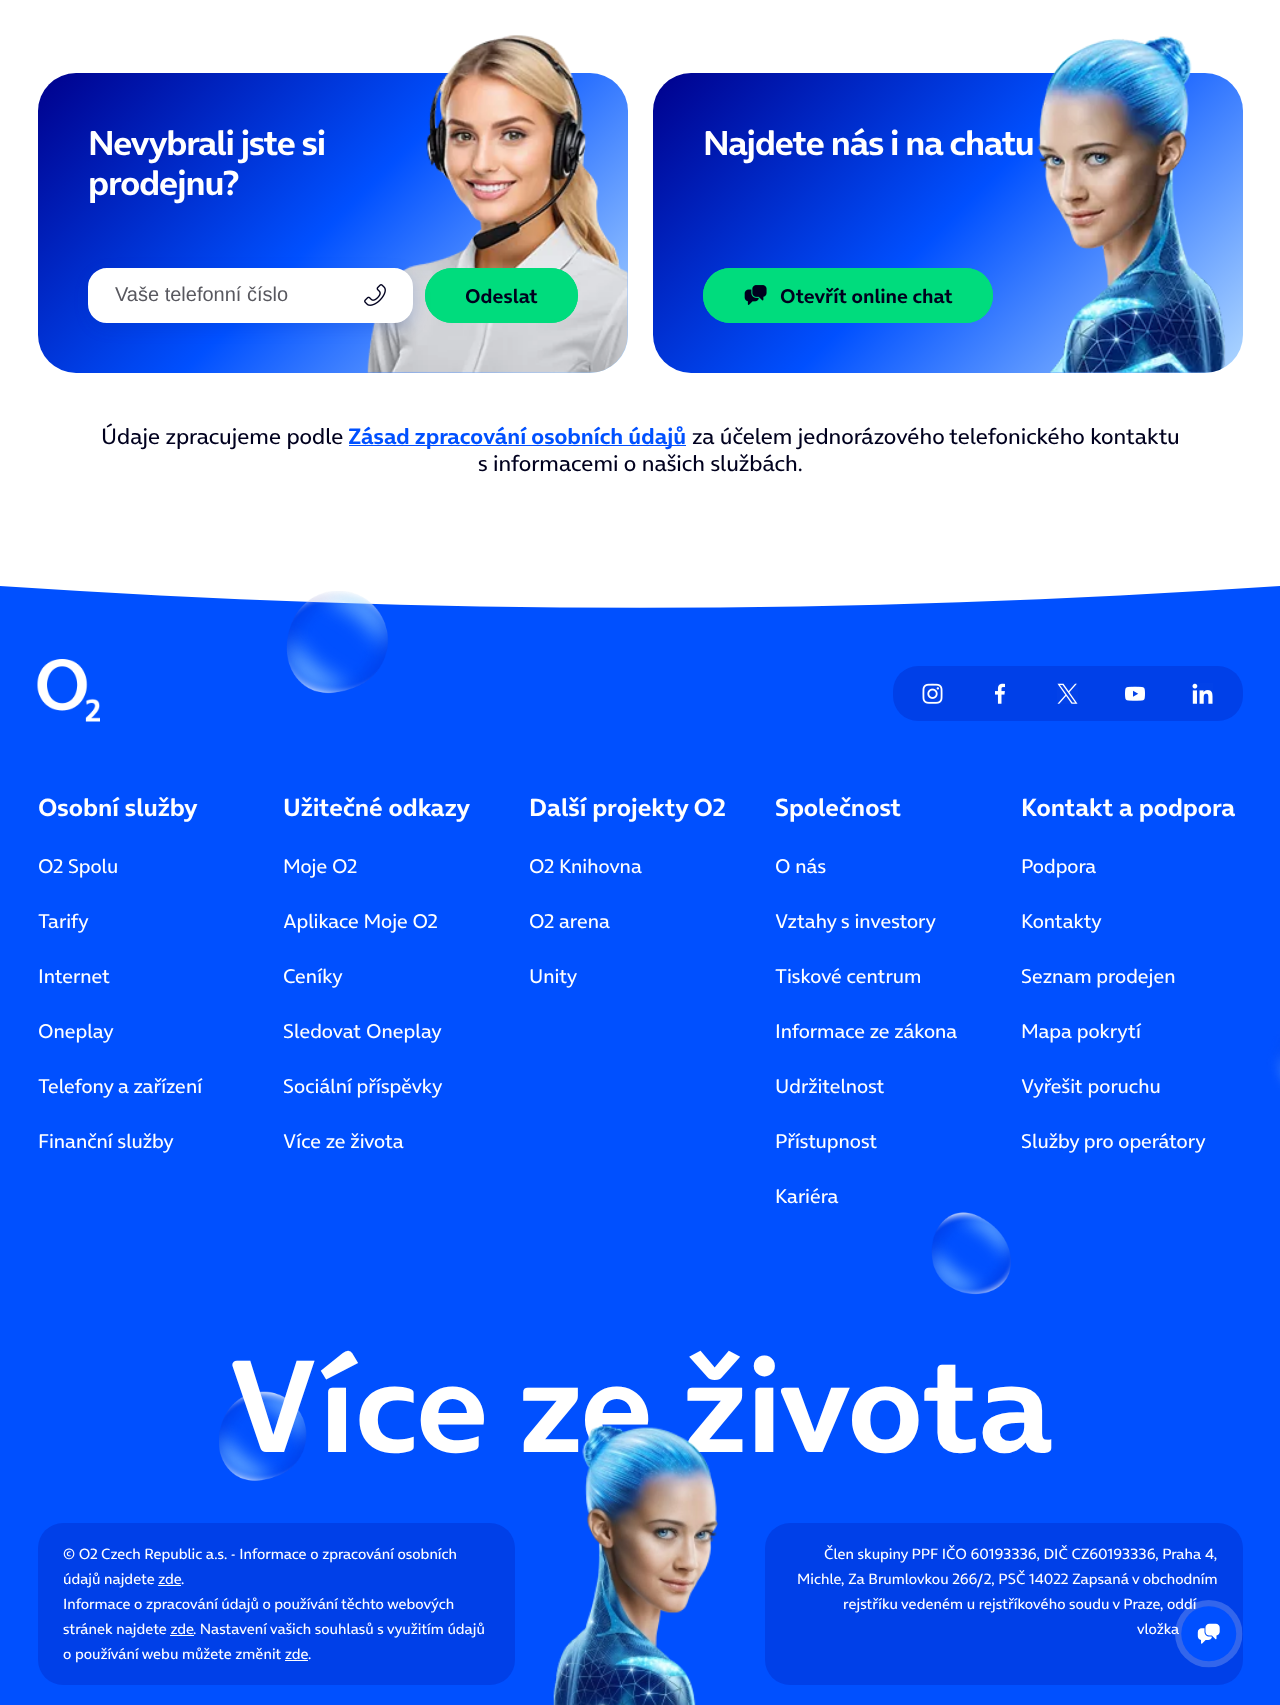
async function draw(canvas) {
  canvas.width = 1280;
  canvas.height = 1705;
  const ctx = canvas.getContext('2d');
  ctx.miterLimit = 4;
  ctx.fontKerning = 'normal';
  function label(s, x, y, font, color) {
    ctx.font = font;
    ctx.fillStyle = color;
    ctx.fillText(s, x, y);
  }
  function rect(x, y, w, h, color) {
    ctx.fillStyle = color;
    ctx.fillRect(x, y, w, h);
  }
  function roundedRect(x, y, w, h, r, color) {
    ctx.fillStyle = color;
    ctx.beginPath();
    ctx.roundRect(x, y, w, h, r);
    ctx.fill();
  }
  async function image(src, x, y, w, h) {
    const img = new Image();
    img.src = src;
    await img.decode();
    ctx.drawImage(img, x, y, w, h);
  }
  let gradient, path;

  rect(0, 0, 1280, 1705, '#fff');
  gradient = ctx.createLinearGradient(110, 0, 555, 445);
  gradient.addColorStop(0, '#00008c');
  gradient.addColorStop(0.5, '#0050ff');
  gradient.addColorStop(1, '#afd7ff');
  ctx.fillStyle = gradient;
  ctx.beginPath();
  ctx.roundRect(38, 73, 590, 300, 38);
  ctx.fill();
  await image('assets/img1.png', 367, 35, 261, 338);
  ctx.letterSpacing = '-1.05px';
  label('Nevybrali jste si', 88, 155, 'bold 35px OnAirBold', '#fff');
  label('prodejnu?', 88, 195, 'bold 35px OnAirBold', '#fff');
  roundedRect(425, 268, 153, 55, 27.5, '#00dc7d');
  ctx.save();
  ctx.beginPath();
  ctx.roundRect(425, 268, 153, 55, 27.5);
  ctx.clip();
  gradient = ctx.createRadialGradient(501, 295, 0, 501, 295, 78);
  gradient.addColorStop(0.01, '#00dc7d00');
  gradient.addColorStop(0.01, '#00dc7d');
  ctx.fillStyle = gradient;
  ctx.fillRect(428, 270, 147, 50);
  ctx.restore();
  ctx.beginPath();
  ctx.roundRect(426.5, 269.5, 150, 52, 26);
  ctx.strokeStyle = '#00dc7d';
  ctx.lineWidth = 3;
  ctx.stroke();
  ctx.fillStyle = '#0038b22b';
  ctx.filter = 'blur(7.5px)';
  ctx.beginPath();
  ctx.roundRect(90, 273, 325, 55, 19);
  ctx.fill();
  ctx.filter = 'none';
  ctx.fillStyle = '#fff';
  ctx.beginPath();
  ctx.roundRect(89.5, 269.5, 322, 52, 17.5);
  ctx.fill();
  ctx.strokeStyle = '#fff';
  ctx.stroke();
  ctx.letterSpacing = '0px';
  label('Vaše telefonní číslo', 115, 301, '20px Liberation Sans', '#58585f');
  await image('assets/img2.png', 364, 284, 22, 22);
  label('Odeslat', 465, 303, 'bold 20px OnAirBold', '#00001e');
  gradient = ctx.createLinearGradient(725, 0, 1170, 445);
  gradient.addColorStop(0, '#00008c');
  gradient.addColorStop(0.5, '#0050ff');
  gradient.addColorStop(1, '#afd7ff');
  ctx.fillStyle = gradient;
  ctx.beginPath();
  ctx.roundRect(653, 73, 590, 300, 38);
  ctx.fill();
  ctx.letterSpacing = '-1.05px';
  label('Najdete nás i na chatu', 703, 155, 'bold 35px OnAirBold', '#fff');
  roundedRect(703, 268, 290, 55, 27.5, '#00dc7d');
  ctx.save();
  ctx.beginPath();
  ctx.roundRect(703, 268, 290, 55, 27.5);
  ctx.clip();
  gradient = ctx.createRadialGradient(848, 295, 0, 848, 295, 145);
  gradient.addColorStop(0.01, '#00dc7d00');
  gradient.addColorStop(0.01, '#00dc7d');
  ctx.fillStyle = gradient;
  ctx.fillRect(705, 270, 285, 50);
  ctx.restore();
  ctx.beginPath();
  ctx.roundRect(704.5, 269.5, 287, 52, 26);
  ctx.strokeStyle = '#00dc7d';
  ctx.stroke();
  await image('assets/img3.png', 744, 285, 23, 20);
  ctx.letterSpacing = '0px';
  label('Otevřít online chat', 780, 303, 'bold 20px OnAirBold', '#00001e');
  await image('assets/img4.png', 1037, 36, 189, 337);
  label('Údaje zpracujeme podle', 101, 444, '22.5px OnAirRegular', '#00001e');
  rect(349, 445, 337, 1, '#0050ff');
  label('Zásad zpracování osobních údajů', 348, 444, 'bold 22.5px OnAirBold', '#0050ff');
  label('za účelem jednorázového telefonického kontaktu', 692, 444, '22.5px OnAirRegular', '#00001e');
  label('s informacemi o našich službách.', 478, 471, '22.5px OnAirRegular', '#00001e');
  ctx.save();
  ctx.beginPath();
  ctx.rect(0, 586, 1280, 23);
  ctx.clip();
  ctx.fillStyle = '#0050ff';
  path = new Path2D('M0 586V1212H1280V586C854 615 426 615 0 586Z');
  ctx.fill(path, 'evenodd');
  ctx.restore();
  rect(0, 609, 1280, 1096, '#0050ff');
  await image('assets/img5.png', 219, 591, 1061, 890);
  await image('assets/img6.png', 37, 659, 63, 63);
  roundedRect(893, 666, 350, 55, 25, '#0040e8');
  await image('assets/img7.png', 922, 683, 21, 21);
  await image('assets/img8.png', 995, 683, 10, 21);
  await image('assets/img9.png', 1057, 683, 21, 21);
  await image('assets/img10.png', 1125, 686, 20, 15);
  await image('assets/img11.png', 1192, 683, 21, 21);
  label('Osobní služby', 38, 816, 'bold 25px OnAirBold', '#fff');
  label('O2 Spolu', 38, 873, '20px OnAirRegular', '#fff');
  label('Tarify', 38, 928, '20px OnAirRegular', '#fff');
  label('Internet', 38, 983, '20px OnAirRegular', '#fff');
  label('Oneplay', 38, 1038, '20px OnAirRegular', '#fff');
  label('Telefony a zařízení', 38, 1093, '20px OnAirRegular', '#fff');
  label('Finanční služby', 38, 1148, '20px OnAirRegular', '#fff');
  label('Užitečné odkazy', 283, 816, 'bold 25px OnAirBold', '#fff');
  label('Moje O2', 283, 873, '20px OnAirRegular', '#fff');
  label('Aplikace Moje O2', 283, 928, '20px OnAirRegular', '#fff');
  label('Ceníky', 283, 983, '20px OnAirRegular', '#fff');
  label('Sledovat Oneplay', 283, 1038, '20px OnAirRegular', '#fff');
  label('Sociální příspěvky', 283, 1093, '20px OnAirRegular', '#fff');
  label('Více ze života', 283, 1148, '20px OnAirRegular', '#fff');
  label('Další projekty O2', 529, 816, 'bold 25px OnAirBold', '#fff');
  label('O2 Knihovna', 529, 873, '20px OnAirRegular', '#fff');
  label('O2 arena', 529, 928, '20px OnAirRegular', '#fff');
  label('Unity', 529, 983, '20px OnAirRegular', '#fff');
  label('Společnost', 775, 816, 'bold 25px OnAirBold', '#fff');
  label('O nás', 775, 873, '20px OnAirRegular', '#fff');
  label('Vztahy s investory', 775, 928, '20px OnAirRegular', '#fff');
  label('Tiskové centrum', 775, 983, '20px OnAirRegular', '#fff');
  label('Informace ze zákona', 775, 1038, '20px OnAirRegular', '#fff');
  label('Udržitelnost', 775, 1093, '20px OnAirRegular', '#fff');
  label('Přístupnost', 775, 1148, '20px OnAirRegular', '#fff');
  label('Kariéra', 775, 1203, '20px OnAirRegular', '#fff');
  label('Kontakt a podpora', 1021, 816, 'bold 25px OnAirBold', '#fff');
  label('Podpora', 1021, 873, '20px OnAirRegular', '#fff');
  label('Kontakty', 1021, 928, '20px OnAirRegular', '#fff');
  label('Seznam prodejen', 1021, 983, '20px OnAirRegular', '#fff');
  label('Mapa pokrytí', 1021, 1038, '20px OnAirRegular', '#fff');
  label('Vyřešit poruchu', 1021, 1093, '20px OnAirRegular', '#fff');
  label('Služby pro operátory', 1021, 1148, '20px OnAirRegular', '#fff');
  label('Více ze života', 228, 1452, 'bold 132.5px OnAirBold', '#fff');
  await image('assets/img12.png', 553, 1425, 165, 280);
  roundedRect(38, 1523, 477, 162, 25, '#0040e8');
  label('© O2 Czech Republic a.s. ‐ Informace o zpracování osobních', 63, 1559, '15px OnAirRegular', '#fff');
  label('údajů najdete zde', 63, 1584, '15px OnAirRegular', '#fff');
  label('.', 181, 1584, '15px OnAirRegular', '#fff');
  rect(158, 1585, 23, 1, '#fff');
  label('Informace o zpracování údajů o používání těchto webových', 63, 1609, '15px OnAirRegular', '#fff');
  label('stránek najdete zde', 63, 1634, '15px OnAirRegular', '#fff');
  rect(170, 1635, 24, 1, '#fff');
  label('. Nastavení vašich souhlasů s využitím údajů', 193, 1634, '15px OnAirRegular', '#fff');
  label('o používání webu můžete změnit zde', 63, 1659, '15px OnAirRegular', '#fff');
  label('.', 308, 1659, '15px OnAirRegular', '#fff');
  rect(285, 1660, 23, 1, '#fff');
  roundedRect(765, 1523, 478, 162, 25, '#0040e8');
  label('Člen skupiny PPF IČO 60193336, DIČ CZ60193336, Praha 4,', 824, 1559, '15px OnAirRegular', '#fff');
  label('Michle, Za Brumlovkou 266/2, PSČ 14022 Zapsaná v obchodním', 797, 1584, '15px OnAirRegular', '#fff');
  label('rejstříku vedeném u rejstříkového soudu v Praze, oddí', 843, 1609, '15px OnAirRegular', '#fff');
  label('vložka', 1137, 1634, '15px OnAirRegular', '#fff');
  await image('assets/img13.png', 1175, 1600, 68, 68);
}

draw(document.querySelector('canvas'));
